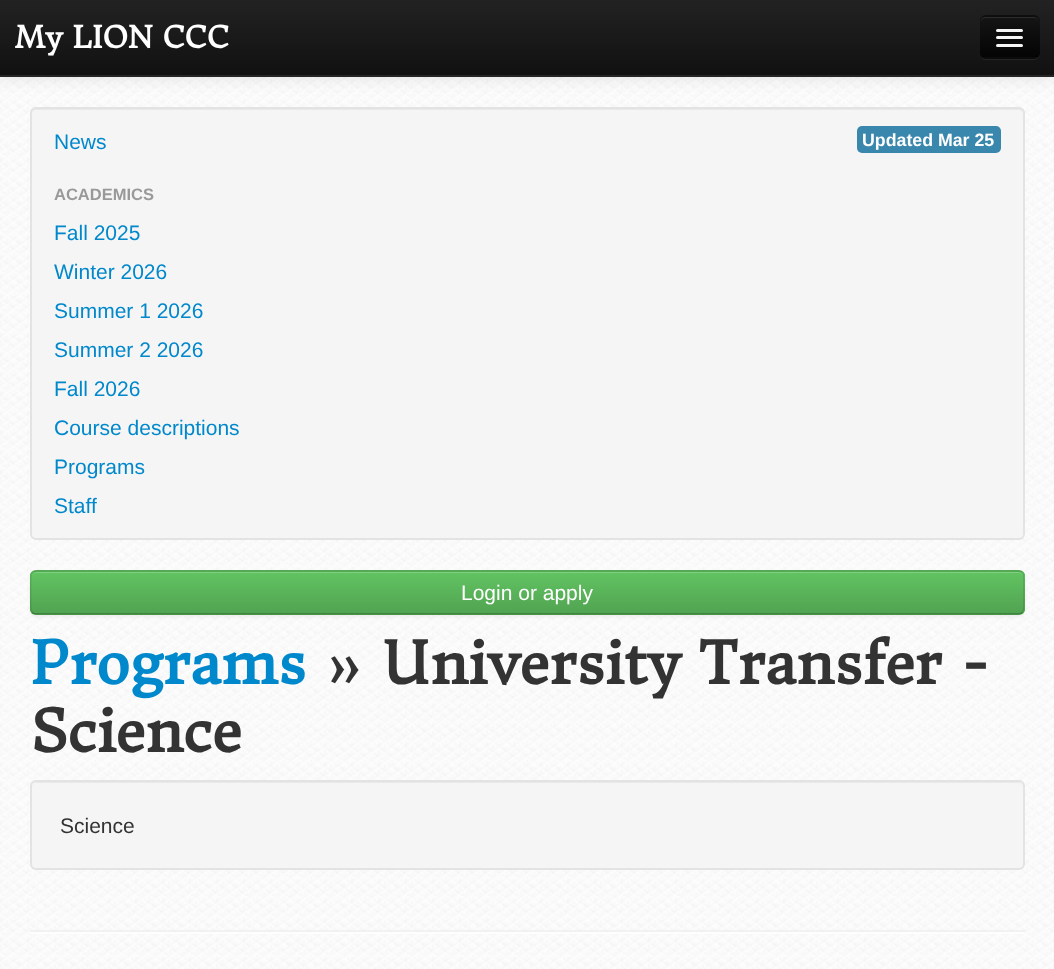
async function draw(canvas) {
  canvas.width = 1054;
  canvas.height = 969;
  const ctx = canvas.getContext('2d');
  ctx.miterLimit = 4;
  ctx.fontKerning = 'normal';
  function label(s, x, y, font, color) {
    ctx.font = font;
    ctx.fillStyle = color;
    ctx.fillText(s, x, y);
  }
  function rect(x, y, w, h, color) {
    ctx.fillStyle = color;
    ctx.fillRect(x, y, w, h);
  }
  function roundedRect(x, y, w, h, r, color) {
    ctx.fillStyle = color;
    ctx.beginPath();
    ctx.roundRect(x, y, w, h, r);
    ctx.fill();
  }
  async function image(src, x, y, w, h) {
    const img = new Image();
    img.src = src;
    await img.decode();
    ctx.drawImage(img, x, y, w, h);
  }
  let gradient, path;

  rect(0, 0, 1054, 969, '#fff');
  await image('assets/img1.png', 0, 77, 1054, 892);
  ctx.fillStyle = '#0000001a';
  ctx.filter = 'blur(7.5px)';
  ctx.beginPath();
  ctx.rect(0, 2, 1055, 76);
  ctx.fill();
  ctx.filter = 'none';
  gradient = ctx.createLinearGradient(527, 0, 527, 75);
  gradient.addColorStop(0, '#222');
  gradient.addColorStop(1, '#111');
  ctx.fillStyle = gradient;
  ctx.fillRect(0, 0, 1054, 75);
  rect(0, 75, 1054, 2, '#252525');
  label('My LION CCC', 15, 48, 'bold 30px Donegal One', '#fff');
  ctx.fillStyle = '#ffffff12';
  path = new Path2D('M980 55C981 58 983 60 986 60H1034C1037 60 1040 57 1040 54V23L1039 21L1040 47C1040 59 1037 58 1026 58H994C989 58 982 60 980 55Z');
  ctx.fill(path);
  roundedRect(980, 15, 60, 44, 6, '#0e0e0e');
  ctx.save();
  ctx.beginPath();
  ctx.roundRect(980, 15, 60, 44, 6);
  ctx.clip();
  gradient = ctx.createLinearGradient(1010, 16, 1010, 57);
  gradient.addColorStop(0, '#151515');
  gradient.addColorStop(1, '#040404');
  ctx.fillStyle = gradient;
  ctx.fillRect(980, 17, 60, 40);
  ctx.restore();
  ctx.fillStyle = '#2c2c2c';
  path = new Path2D('M986 18H1034C1036 18 1038 20 1038 22C1038 19 1036 17 1033 17H986C983 17 981 19 981 22C981 20 983 18 986 18Z');
  ctx.fill(path);
  path = new Path2D('M1037 56C1036 57 1035 58 1033.5 58H985.5C984 58 983 57 982 56');
  ctx.strokeStyle = '#00000040';
  ctx.lineWidth = 1.5;
  ctx.stroke(path);
  ctx.fillStyle = '#0b0b0b';
  path = new Path2D('M996 30.5C994.5 34 1001.5 33 1001.5 33H1017.5C1017.5 33 1024.5 34 1023 30.5C1022.5 31 1022 31.5 1021.5 31.5H997.5C997 31.5 996.5 31 996 30.5Z');
  ctx.fill(path);
  roundedRect(996, 29, 27, 3, 1.5, '#f5f5f5');
  ctx.fillStyle = '#080808';
  path = new Path2D('M996.5 38.5L996 40C996.5 42 1001 41 1001.5 41H1017.5C1018 41 1022.5 42 1023 40L1022.5 38.5L1021.5 39H997.5Z');
  ctx.fill(path);
  roundedRect(996, 36, 27, 3, 1.5, '#f5f5f5');
  roundedRect(996, 44, 27, 3, 1.5, '#f5f5f5');
  roundedRect(30, 107, 995, 433, 6, '#f5f5f5');
  ctx.fillStyle = '#e9e9e9';
  path = new Path2D('M36 110H1018C1021 110 1023 112 1023 114C1023 111 1021 108 1018 108H37C34 108 32 111 32 114C32 112 34 110 36 110Z');
  ctx.fill(path);
  ctx.beginPath();
  ctx.roundRect(31, 108, 993, 431, 5);
  ctx.strokeStyle = '#e3e3e3';
  ctx.lineWidth = 2;
  ctx.stroke();
  label('News', 54, 149, '21px Liberation Sans', '#08c');
  roundedRect(857, 126, 144, 27, 5, '#3a87ad');
  label('Updated Mar 25', 862, 146, 'bold 17.75px Liberation Sans', '#fff');
  label('ACADEMICS', 54, 200, 'bold 16.5px Liberation Sans', '#999');
  label('Fall 2025', 54, 240, '21px Liberation Sans', '#08c');
  label('Winter 2026', 54, 279, '21px Liberation Sans', '#08c');
  label('Summer 1 2026', 54, 318, '21px Liberation Sans', '#08c');
  label('Summer 2 2026', 54, 357, '21px Liberation Sans', '#08c');
  label('Fall 2026', 54, 396, '21px Liberation Sans', '#08c');
  label('Course descriptions', 54, 435, '21px Liberation Sans', '#08c');
  label('Programs', 54, 474, '21px Liberation Sans', '#08c');
  label('Staff', 54, 513, '21px Liberation Sans', '#08c');
  ctx.fillStyle = '#0000000d';
  ctx.filter = 'blur(1.5px)';
  ctx.beginPath();
  ctx.roundRect(30, 572, 995, 45, 6);
  ctx.fill();
  ctx.filter = 'none';
  roundedRect(30, 570, 995, 45, 6, '#5bb75b');
  ctx.save();
  ctx.beginPath();
  ctx.roundRect(30, 570, 995, 45, 6);
  ctx.clip();
  gradient = ctx.createLinearGradient(527, 571, 527, 614);
  gradient.addColorStop(0, '#62c462');
  gradient.addColorStop(1, '#51a351');
  ctx.fillStyle = gradient;
  ctx.fillRect(30, 572, 995, 42);
  ctx.restore();
  ctx.fillStyle = '#81cf81';
  path = new Path2D('M36 573H1018C1021 573 1023 575 1023 578C1023 575 1021 572 1018 572H37C34 572 32 575 32 578C32 575 34 573 36 573Z');
  ctx.fill(path);
  path = new Path2D('M1022 612.5C1021 613.5 1020 614 1018.5 614H36C34.5 614 33.5 613.5 32.5 612.5');
  ctx.strokeStyle = '#00000040';
  ctx.lineWidth = 1.5;
  ctx.stroke(path);
  path = new Path2D('M32.5 612.5L31 610C30.5 607 30.5 576 31 574C32 572 34 571 36 571H1018.5C1020.5 571 1022.5 572 1023.5 574C1024 576 1024 607 1023.5 610L1022 612.5');
  ctx.strokeStyle = '#0000001a';
  ctx.stroke(path);
  label('Login or apply', 461, 600, '21px Liberation Sans', '#fff');
  label('Programs', 30, 684, 'bold 57.75px Donegal One', '#08c');
  label('» University Transfer -', 325, 684, 'bold 57.75px Donegal One', '#333');
  label('Science', 30, 752, 'bold 57.75px Donegal One', '#333');
  roundedRect(30, 780, 995, 90, 6, '#f5f5f5');
  ctx.fillStyle = '#e9e9e9';
  path = new Path2D('M36 783H1018C1021 783 1023 785 1023 788C1023 785 1021 782 1018 782H37C34 782 32 785 32 788C32 785 34 783 36 783Z');
  ctx.fill(path);
  ctx.beginPath();
  ctx.roundRect(31, 781, 993, 88, 5);
  ctx.strokeStyle = '#e3e3e3';
  ctx.lineWidth = 2;
  ctx.stroke();
  label('Science', 60, 833, '21px Liberation Sans', '#333');
  rect(30, 930, 995, 2, '#eeeeeeb3');
  rect(30, 932, 995, 2, '#ffffffb3');
}

draw(document.querySelector('canvas'));
